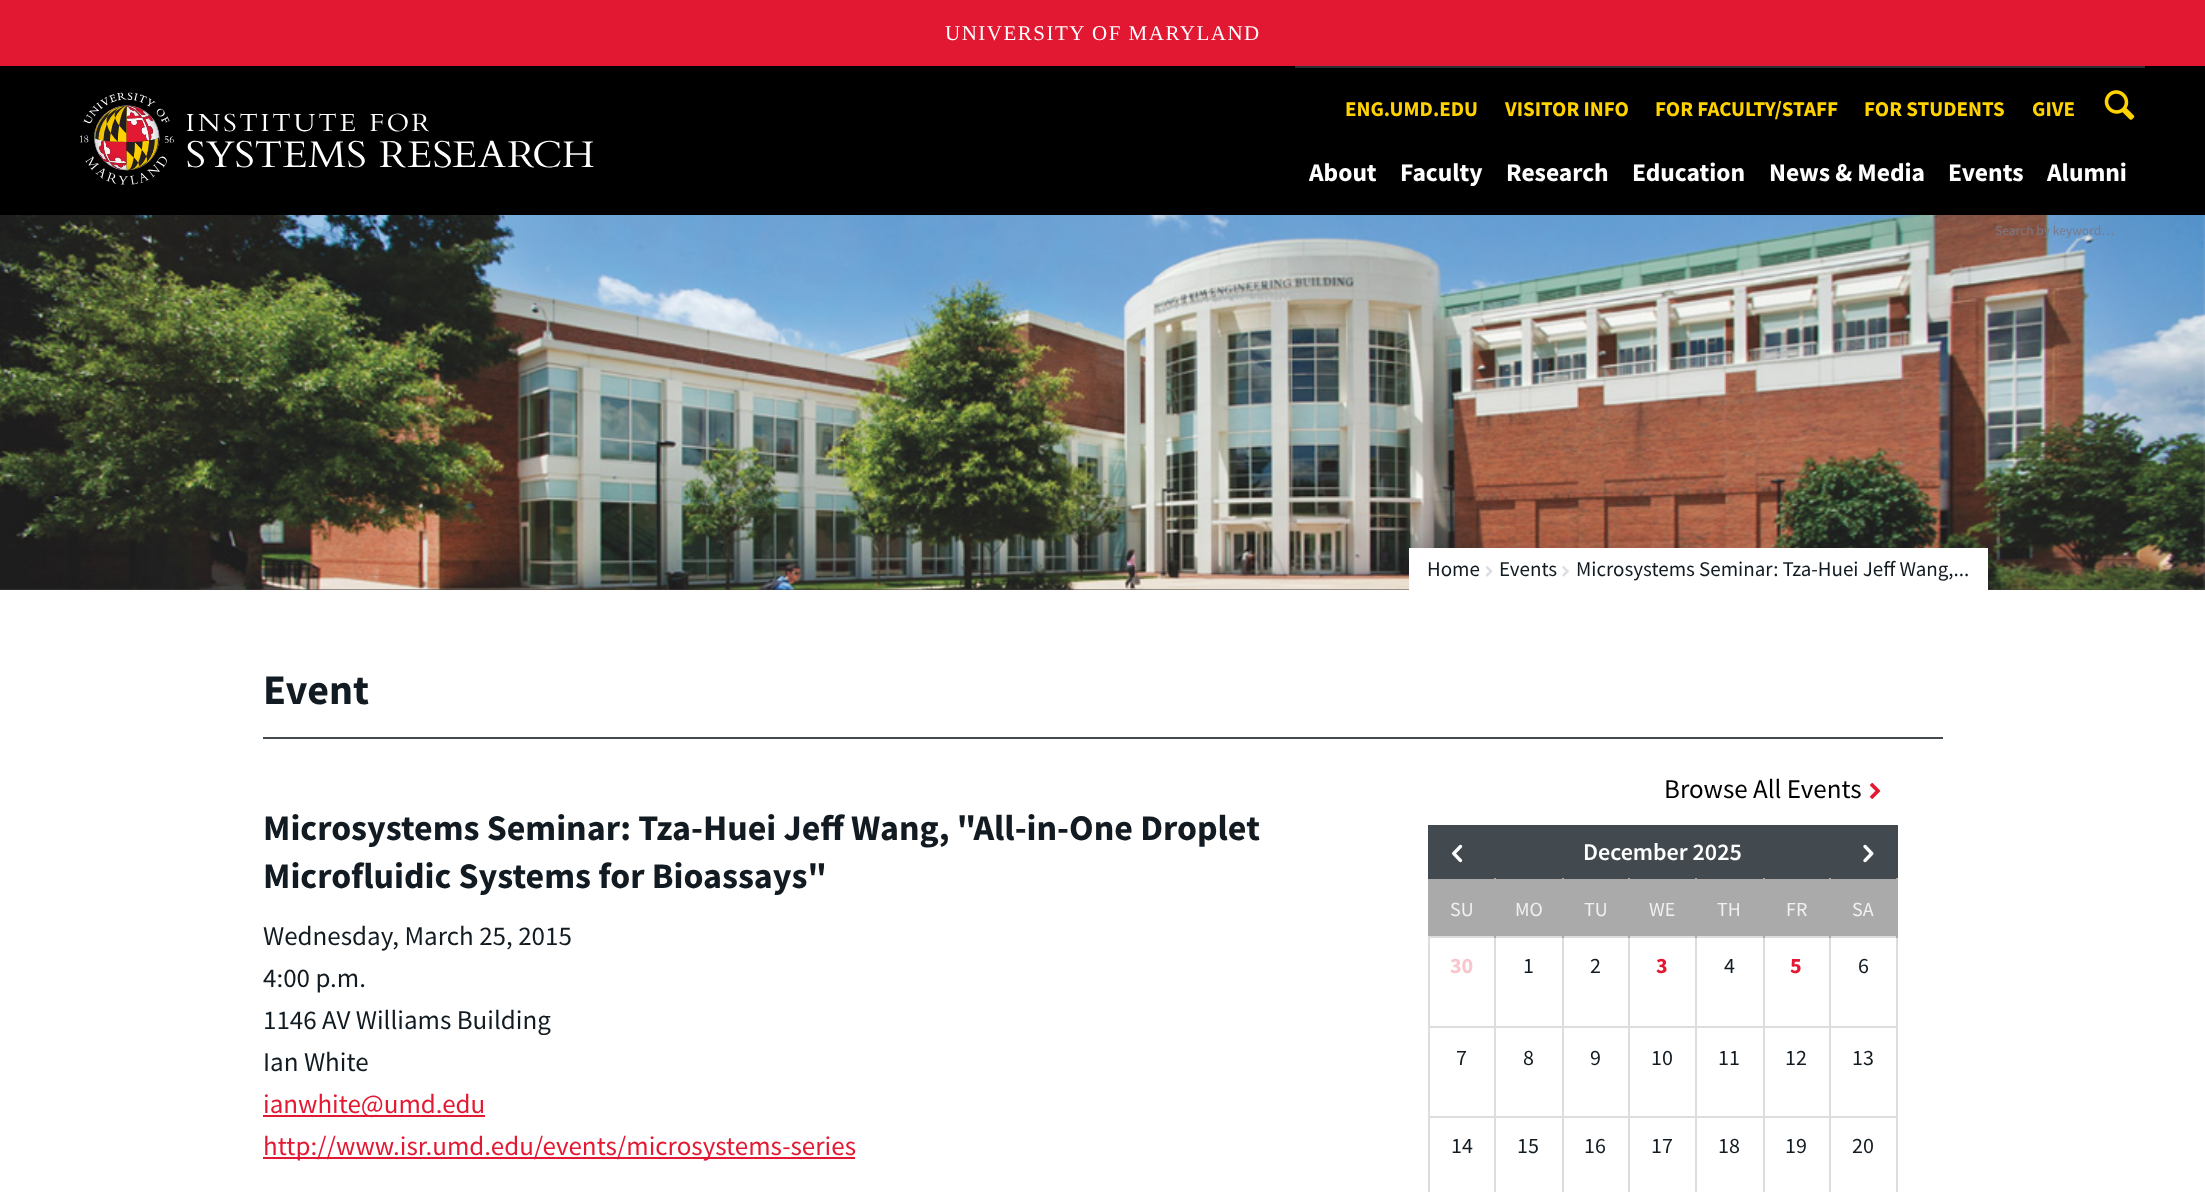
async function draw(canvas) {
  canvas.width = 2205;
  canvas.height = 1192;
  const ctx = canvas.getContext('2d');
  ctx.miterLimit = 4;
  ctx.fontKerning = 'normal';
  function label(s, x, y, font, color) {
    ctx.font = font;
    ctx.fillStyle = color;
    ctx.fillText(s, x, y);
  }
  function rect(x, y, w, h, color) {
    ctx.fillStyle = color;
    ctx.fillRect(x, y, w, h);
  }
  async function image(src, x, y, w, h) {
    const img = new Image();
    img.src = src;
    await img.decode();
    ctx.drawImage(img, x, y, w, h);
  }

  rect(0, 0, 2205, 1192, '#fff');
  rect(0, 0, 2205, 66, '#e21833');
  ctx.letterSpacing = '1.5px';
  label('UNIVERSITY OF MARYLAND', 945, 40, '21px Liberation Serif', '#fff');
  rect(0, 66, 2205, 149, '#000');
  await image('assets/img1.png', 80, 92, 514, 93);
  await image('assets/img2.png', 2104, 90, 31, 30);
  rect(1295, 66, 850, 2, '#292f35');
  ctx.letterSpacing = '0px';
  label('ENG.UMD.EDU', 1345, 116, 'bold 21px Source Sans Pro', '#ffd200');
  label('VISITOR INFO', 1505, 116, 'bold 21px Source Sans Pro', '#ffd200');
  label('FOR FACULTY/STAFF', 1655, 116, 'bold 21px Source Sans Pro', '#ffd200');
  label('FOR STUDENTS', 1864, 116, 'bold 21px Source Sans Pro', '#ffd200');
  label('GIVE', 2032, 116, 'bold 21px Source Sans Pro', '#ffd200');
  label('About', 1309, 181, 'bold 25.5px Source Sans Pro', '#fff');
  label('Faculty', 1400, 181, 'bold 25.5px Source Sans Pro', '#fff');
  label('Research', 1506, 181, 'bold 25.5px Source Sans Pro', '#fff');
  label('Education', 1632, 181, 'bold 25.5px Source Sans Pro', '#fff');
  label('News & Media', 1769, 181, 'bold 25.5px Source Sans Pro', '#fff');
  label('Events', 1948, 181, 'bold 25.5px Source Sans Pro', '#fff');
  label('Alumni', 2047, 181, 'bold 25.5px Source Sans Pro', '#fff');
  rect(0, 589, 2205, 1, '#423c3c');
  await image('assets/img3.png', 0, 215, 2205, 375);
  label('Search by keyword…', 1995, 235, '13.5px Source Sans Pro', '#777b8d');
  rect(1409, 548, 579, 42, '#fff');
  label('Home', 1427, 576, '21px Source Sans Pro', '#121b21');
  await image('assets/img4.png', 1485, 566, 8, 11);
  label('Events', 1499, 576, '21px Source Sans Pro', '#121b21');
  await image('assets/img5.png', 1562, 566, 7, 11);
  label('Microsystems Seminar: Tza-Huei Jeff Wang,...', 1576, 576, '21px Source Sans Pro', '#121b21');
  rect(263, 737, 1680, 2, '#434a4f');
  label('Event', 263, 704, 'bold 42px Source Sans Pro', '#121b21');
  label('Microsystems Seminar: Tza-Huei Jeff Wang, "All-in-One Droplet', 263, 840, 'bold 36px Source Sans Pro', '#121b21');
  label('Microfluidic Systems for Bioassays"', 263, 888, 'bold 36px Source Sans Pro', '#121b21');
  label('Wednesday, March 25, 2015', 263, 945, '27px Source Sans Pro', '#121b21');
  label('4:00 p.m.', 263, 987, '27px Source Sans Pro', '#121b21');
  label('1146 AV Williams Building', 263, 1029, '27px Source Sans Pro', '#121b21');
  label('Ian White', 263, 1071, '27px Source Sans Pro', '#121b21');
  rect(263, 1115, 222, 2, '#e31933');
  label('ianwhite@umd.edu', 263, 1113, '27px Source Sans Pro', '#e31933');
  rect(263, 1157, 592, 2, '#e31933');
  label('http://www.isr.umd.edu/events/microsystems-series', 263, 1155, '27px Source Sans Pro', '#e31933');
  label('Browse All Events', 1664, 798, '27px Source Sans Pro', '#000');
  await image('assets/img6.png', 1869, 782, 12, 17);
  rect(1428, 825, 470, 54, '#434a4f');
  await image('assets/img7.png', 1452, 844, 11, 19);
  label('December 2025', 1583, 860, '600 24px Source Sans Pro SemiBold', '#fff');
  await image('assets/img8.png', 1863, 844, 11, 19);
  rect(1428, 879, 66, 57, '#aaa');
  rect(1829, 936, 69, 2, '#dcddde');
  rect(1829, 1026, 69, 2, '#dcddde');
  rect(1829, 1116, 69, 2, '#dcddde');
  rect(1829, 1116, 2, 76, '#dcddde');
  rect(1763, 1116, 67, 2, '#dcddde');
  rect(1829, 1026, 2, 92, '#dcddde');
  rect(1763, 1026, 67, 2, '#dcddde');
  rect(1829, 936, 2, 92, '#dcddde');
  rect(1763, 936, 67, 2, '#dcddde');
  rect(1763, 1116, 2, 76, '#dcddde');
  rect(1695, 1116, 69, 2, '#dcddde');
  rect(1763, 1026, 2, 92, '#dcddde');
  rect(1695, 1026, 69, 2, '#dcddde');
  rect(1763, 936, 2, 92, '#dcddde');
  rect(1695, 936, 69, 2, '#dcddde');
  rect(1695, 1116, 2, 76, '#dcddde');
  rect(1628, 1116, 69, 2, '#dcddde');
  rect(1695, 1026, 2, 92, '#dcddde');
  rect(1628, 1026, 69, 2, '#dcddde');
  rect(1695, 936, 2, 92, '#dcddde');
  rect(1628, 936, 69, 2, '#dcddde');
  rect(1628, 1116, 2, 76, '#dcddde');
  rect(1562, 1116, 67, 2, '#dcddde');
  rect(1628, 1026, 2, 92, '#dcddde');
  rect(1562, 1026, 67, 2, '#dcddde');
  rect(1628, 936, 2, 92, '#dcddde');
  rect(1562, 936, 67, 2, '#dcddde');
  rect(1562, 1116, 2, 76, '#dcddde');
  rect(1494, 1116, 69, 2, '#dcddde');
  rect(1562, 1026, 2, 92, '#dcddde');
  rect(1494, 1026, 69, 2, '#dcddde');
  rect(1562, 936, 2, 92, '#dcddde');
  rect(1494, 936, 69, 2, '#dcddde');
  rect(1494, 1116, 2, 76, '#dcddde');
  rect(1428, 1116, 68, 2, '#dcddde');
  rect(1494, 1026, 2, 92, '#dcddde');
  rect(1428, 1026, 68, 2, '#dcddde');
  rect(1494, 936, 2, 92, '#dcddde');
  rect(1428, 936, 68, 2, '#dcddde');
  rect(1494, 878, 2, 60, '#aaa');
  label('SU', 1450, 916, '20px Source Sans Pro', '#f0f0f0');
  rect(1496, 879, 66, 57, '#aaa');
  rect(1562, 878, 2, 60, '#aaa');
  label('MO', 1515, 916, '20px Source Sans Pro', '#f0f0f0');
  rect(1564, 879, 64, 57, '#aaa');
  rect(1628, 878, 2, 60, '#aaa');
  label('TU', 1584, 916, '20px Source Sans Pro', '#f0f0f0');
  rect(1630, 879, 65, 57, '#aaa');
  rect(1695, 878, 2, 60, '#aaa');
  label('WE', 1649, 916, '20px Source Sans Pro', '#f0f0f0');
  rect(1697, 879, 66, 57, '#aaa');
  rect(1763, 878, 2, 60, '#aaa');
  label('TH', 1717, 916, '20px Source Sans Pro', '#f0f0f0');
  rect(1765, 879, 64, 57, '#aaa');
  rect(1829, 878, 2, 60, '#aaa');
  label('FR', 1786, 916, '20px Source Sans Pro', '#f0f0f0');
  rect(1831, 879, 65, 57, '#aaa');
  rect(1896, 1116, 2, 76, '#dcddde');
  rect(1896, 1026, 2, 92, '#dcddde');
  rect(1896, 936, 2, 92, '#dcddde');
  rect(1896, 878, 2, 60, '#aaa');
  label('SA', 1852, 916, '20px Source Sans Pro', '#f0f0f0');
  rect(1428, 1116, 2, 76, '#dcddde');
  rect(1428, 1026, 2, 92, '#dcddde');
  rect(1428, 936, 2, 92, '#dcddde');
  label('30', 1450, 973, 'bold 22px Source Sans Pro', '#f8c6cc');
  label('1', 1523, 973, '22px Source Sans Pro', '#121b21');
  label('2', 1590, 973, '22px Source Sans Pro', '#121b21');
  label('3', 1656, 973, 'bold 22px Source Sans Pro', '#e31933');
  label('4', 1724, 973, '22px Source Sans Pro', '#121b21');
  label('5', 1790, 973, 'bold 22px Source Sans Pro', '#e31933');
  label('6', 1858, 973, '22px Source Sans Pro', '#121b21');
  label('7', 1456, 1065, '22px Source Sans Pro', '#121b21');
  label('8', 1523, 1065, '22px Source Sans Pro', '#121b21');
  label('9', 1590, 1065, '22px Source Sans Pro', '#121b21');
  label('10', 1651, 1065, '22px Source Sans Pro', '#121b21');
  label('11', 1718, 1065, '22px Source Sans Pro', '#121b21');
  label('12', 1785, 1065, '22px Source Sans Pro', '#121b21');
  label('13', 1852, 1065, '22px Source Sans Pro', '#121b21');
  label('14', 1451, 1153, '22px Source Sans Pro', '#121b21');
  label('15', 1517, 1153, '22px Source Sans Pro', '#121b21');
  label('16', 1584, 1153, '22px Source Sans Pro', '#121b21');
  label('17', 1651, 1153, '22px Source Sans Pro', '#121b21');
  label('18', 1718, 1153, '22px Source Sans Pro', '#121b21');
  label('19', 1785, 1153, '22px Source Sans Pro', '#121b21');
  label('20', 1852, 1153, '22px Source Sans Pro', '#121b21');
}

draw(document.querySelector('canvas'));
